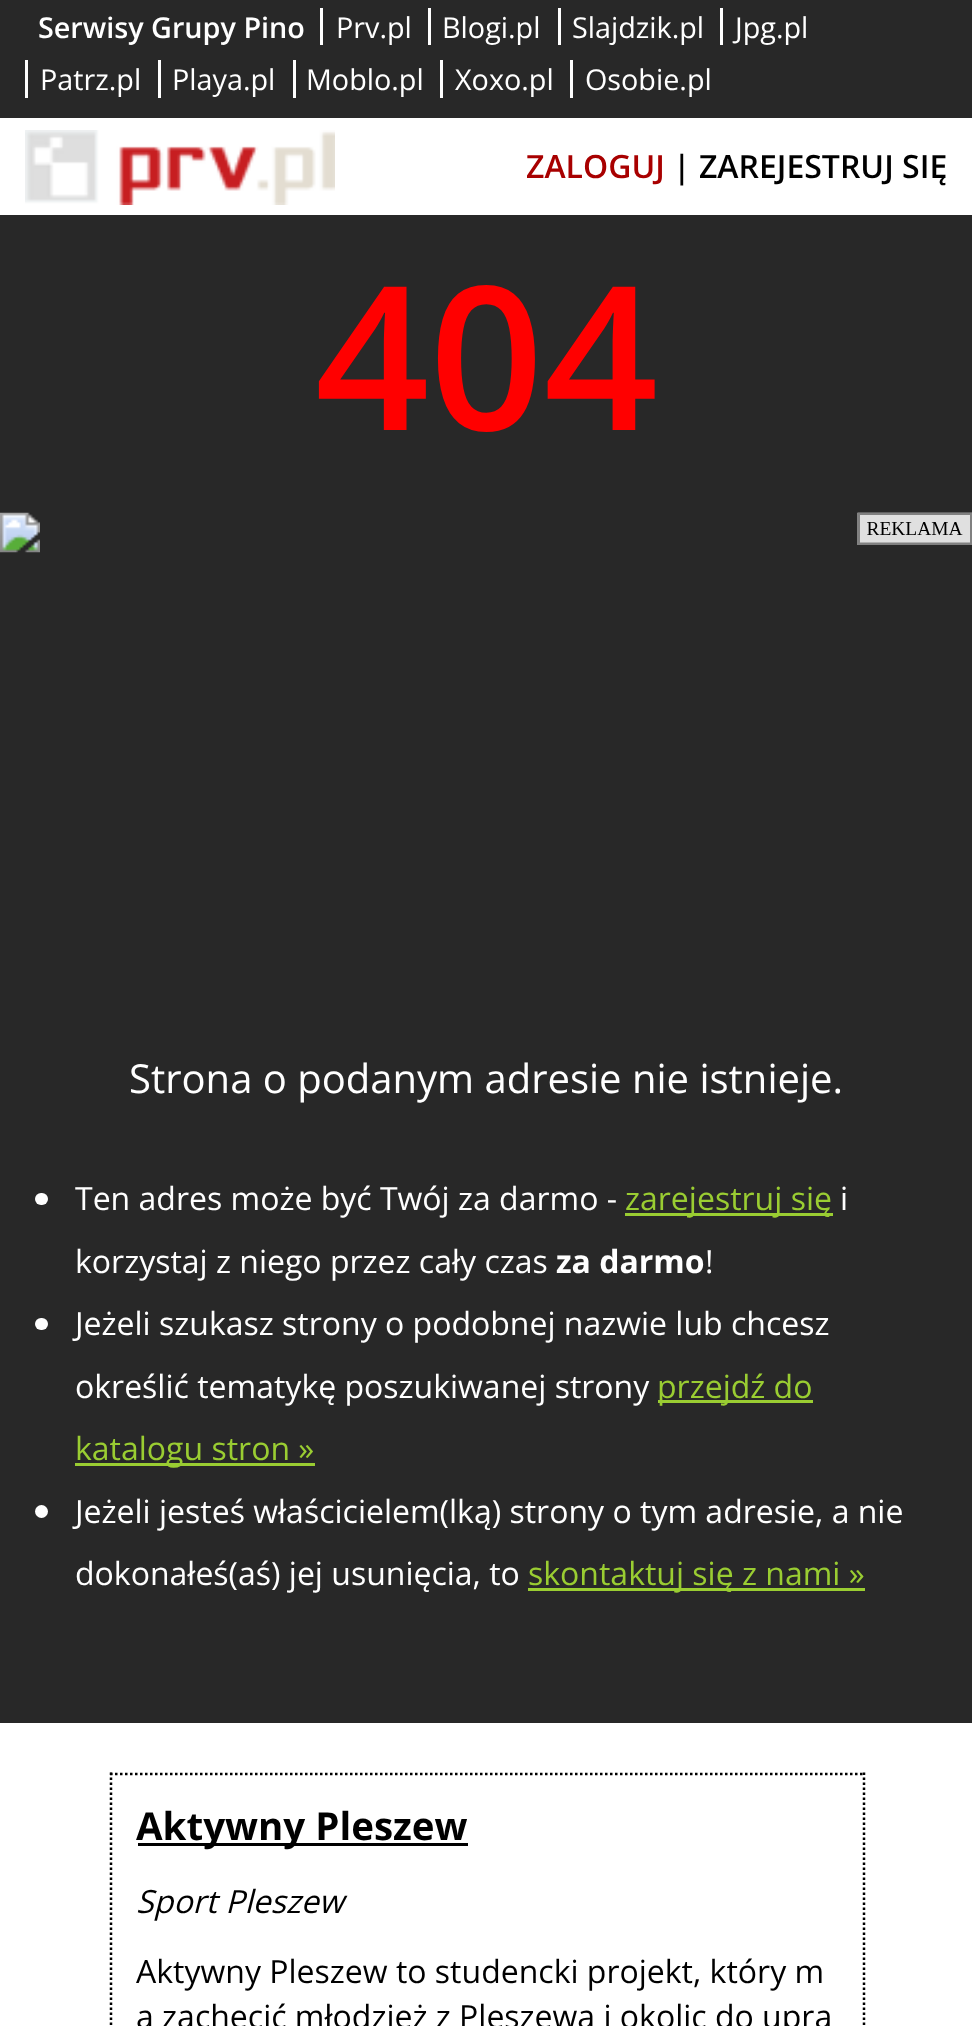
async function draw(canvas) {
  canvas.width = 972;
  canvas.height = 2026;
  const ctx = canvas.getContext('2d');
  ctx.miterLimit = 4;
  ctx.fontKerning = 'normal';
  function label(s, x, y, font, color) {
    ctx.font = font;
    ctx.fillStyle = color;
    ctx.fillText(s, x, y);
  }
  function rect(x, y, w, h, color) {
    ctx.fillStyle = color;
    ctx.fillRect(x, y, w, h);
  }
  function roundedRect(x, y, w, h, r, color) {
    ctx.fillStyle = color;
    ctx.beginPath();
    ctx.roundRect(x, y, w, h, r);
    ctx.fill();
  }
  async function image(src, x, y, w, h) {
    const img = new Image();
    img.src = src;
    await img.decode();
    ctx.drawImage(img, x, y, w, h);
  }
  let path;

  rect(0, 0, 972, 2026, '#fff');
  rect(0, 0, 972, 118, '#282828');
  label('Serwisy Grupy Pino', 38, 38, '600 28.75px Open Sans', '#fff');
  rect(320, 8, 3, 37, '#fff');
  label('Prv.pl', 336, 38, '28.75px Open Sans', '#fff');
  rect(428, 8, 3, 37, '#fff');
  label('Blogi.pl', 442, 38, '28.75px Open Sans', '#fff');
  rect(558, 8, 3, 37, '#fff');
  label('Slajdzik.pl', 572, 38, '28.75px Open Sans', '#fff');
  rect(720, 8, 3, 37, '#fff');
  label('Jpg.pl', 735, 38, '28.75px Open Sans', '#fff');
  rect(25, 60, 3, 38, '#fff');
  label('Patrz.pl', 40, 90, '28.75px Open Sans', '#fff');
  rect(158, 60, 3, 38, '#fff');
  label('Playa.pl', 172, 90, '28.75px Open Sans', '#fff');
  rect(293, 60, 3, 38, '#fff');
  label('Moblo.pl', 306, 90, '28.75px Open Sans', '#fff');
  rect(440, 60, 3, 38, '#fff');
  label('Xoxo.pl', 455, 90, '28.75px Open Sans', '#fff');
  rect(570, 60, 3, 38, '#fff');
  label('Osobie.pl', 585, 90, '28.75px Open Sans', '#fff');
  await image('assets/img1.png', 25, 130, 310, 75);
  label('ZALOGUJ', 526, 178, '600 32px Open Sans', '#a80000');
  label('| ZAREJESTRUJ SIĘ', 673, 178, '600 32px Open Sans', '#000');
  rect(0, 215, 972, 1508, '#282828');
  label('404', 315, 430, '600 200px Open Sans', '#f00');
  await image('assets/img2.png', 0, 512, 972, 41);
  label('Strona o podanym adresie nie istnieje.', 129, 1093, '40px Open Sans', '#fff');
  roundedRect(35, 1193, 13, 12, 6, '#fff');
  label('Ten adres może być Twój za darmo -', 75, 1210, '32px Open Sans', '#fff');
  rect(625, 1213, 208, 3, '#9acd32');
  label('zarejestruj się', 625, 1210, '32px Open Sans', '#9acd32');
  label('i', 840, 1210, '32px Open Sans', '#fff');
  label('korzystaj z niego przez cały czas', 75, 1273, '32px Open Sans', '#fff');
  label('za darmo', 556, 1273, 'bold 32px Open Sans', '#fff');
  label('!', 705, 1273, '32px Open Sans', '#fff');
  roundedRect(35, 1318, 13, 12, 6, '#fff');
  label('Jeżeli szukasz strony o podobnej nazwie lub chcesz', 75, 1335, '32px Open Sans', '#fff');
  label('określić tematykę poszukiwanej strony', 75, 1398, '32px Open Sans', '#fff');
  rect(658, 1400, 155, 3, '#9acd32');
  label('przejdź do', 657, 1398, '32px Open Sans', '#9acd32');
  rect(75, 1463, 240, 3, '#9acd32');
  label('katalogu stron »', 75, 1460, '32px Open Sans', '#9acd32');
  ctx.fillStyle = '#fff';
  ctx.beginPath();
  ctx.arc(41.5, 1511.5, 6.5, 0, 2 * Math.PI);
  ctx.fill();
  label('Jeżeli jesteś właścicielem(lką) strony o tym adresie, a nie', 75, 1523, '32px Open Sans', '#fff');
  label('dokonałeś(aś) jej usunięcia, to', 75, 1585, '32px Open Sans', '#fff');
  rect(528, 1588, 337, 3, '#9acd32');
  label('skontaktuj się z nami »', 528, 1585, '32px Open Sans', '#9acd32');
  path = new Path2D('M110 1774H865');
  ctx.strokeStyle = '#000';
  ctx.lineWidth = 2.5;
  ctx.setLineDash([2.5, 2.5]);
  ctx.stroke(path);
  path = new Path2D('M864 1772.5V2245');
  ctx.stroke(path);
  path = new Path2D('M111 1772.5V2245');
  ctx.stroke(path);
  rect(138, 1843, 330, 3, '#000');
  label('Aktywny Pleszew', 136, 1840, 'bold 38.5px Open Sans', '#000');
  label('Sport Pleszew', 136, 1913, 'italic 32px Open Sans', '#000');
  label('Aktywny Pleszew to studencki projekt, który m', 136, 1983, '32px Open Sans', '#000');
  label('a zachęcić młodzież z Pleszewa i okolic do upra', 136, 2028, '32px Open Sans', '#000');
}

draw(document.querySelector('canvas'));
